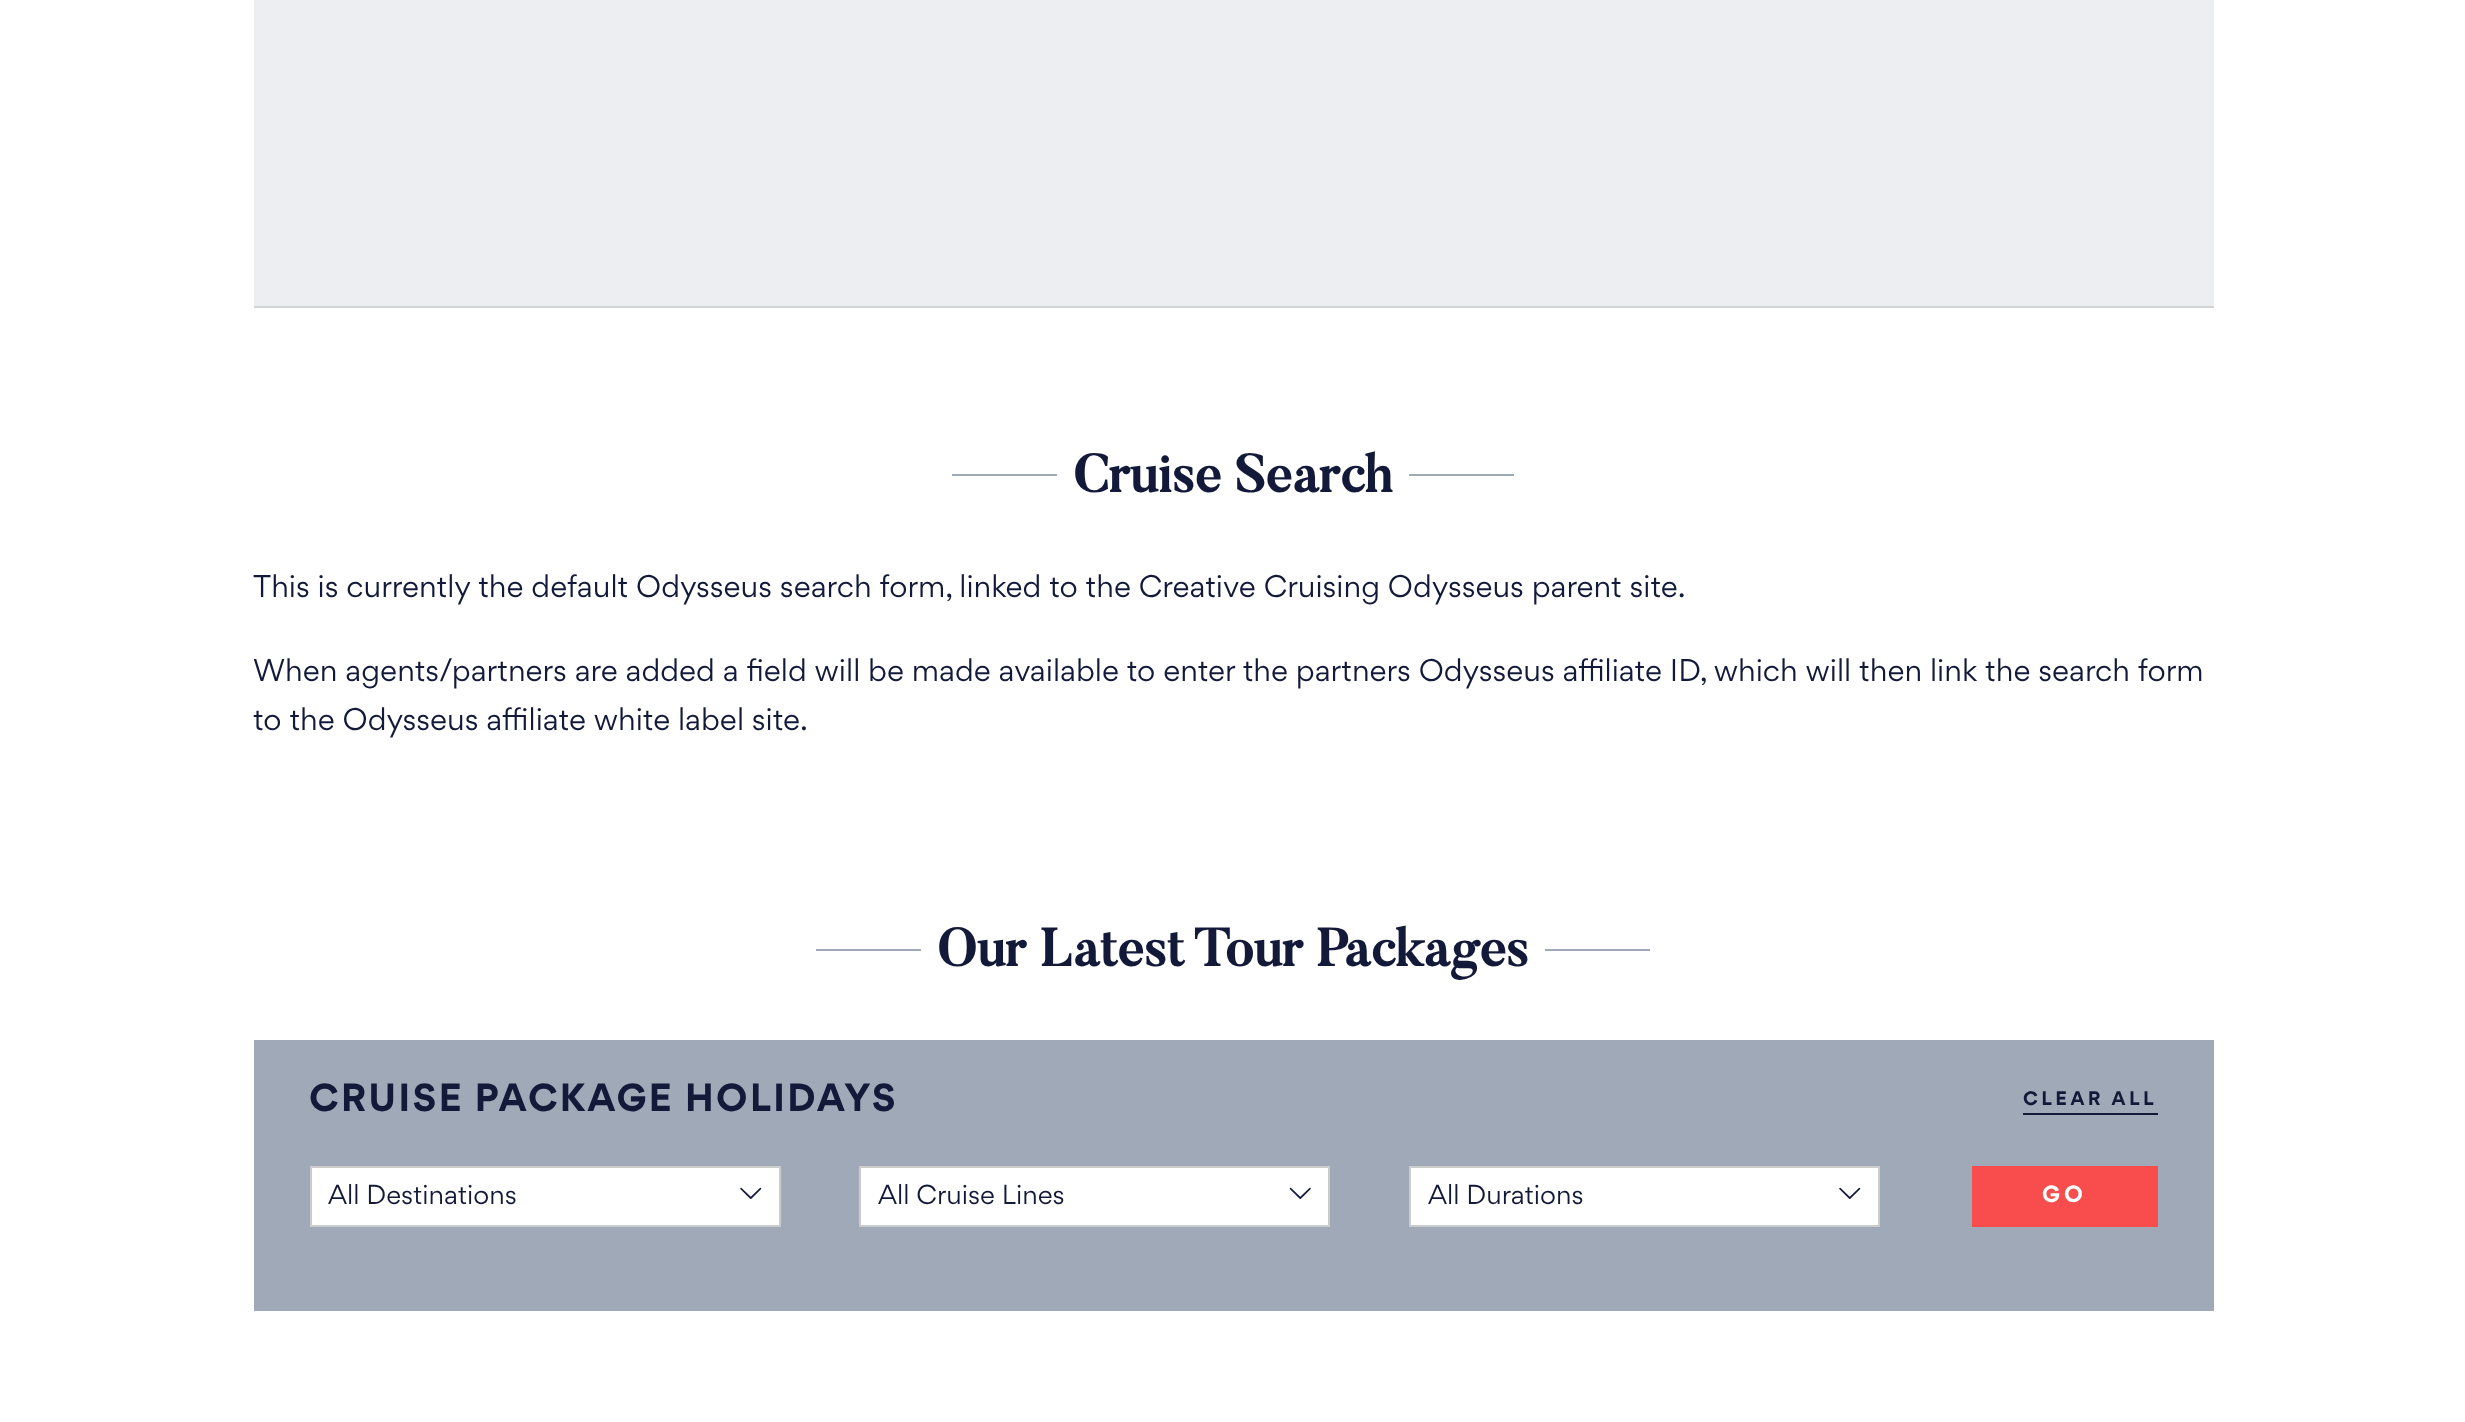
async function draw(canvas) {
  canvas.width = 2465;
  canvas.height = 1422;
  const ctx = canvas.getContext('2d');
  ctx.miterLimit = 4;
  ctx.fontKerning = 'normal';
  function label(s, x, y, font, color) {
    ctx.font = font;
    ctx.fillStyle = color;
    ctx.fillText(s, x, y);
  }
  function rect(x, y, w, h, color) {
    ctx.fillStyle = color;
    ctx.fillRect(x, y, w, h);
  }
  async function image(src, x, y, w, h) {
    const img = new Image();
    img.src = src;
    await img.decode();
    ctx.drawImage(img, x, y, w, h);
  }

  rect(0, 0, 2465, 1422, '#fff');
  rect(254, 306, 1960, 2, '#d2d3d4');
  rect(254, 0, 1960, 306, '#edeef1');
  rect(952, 474, 105, 2, '#a0a9b8');
  label('Cruise Search', 1073, 492, 'bold 52.5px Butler', '#131a39');
  rect(1409, 474, 105, 2, '#a0a9b8');
  label('This is currently the default Odysseus search form, linked to the Creative Cruising Odysseus parent site.', 253, 597, '28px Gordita', '#131a39');
  label('When agents/partners are added a field will be made available to enter the partners Odysseus affiliate ID, which will then link the search form', 253, 681, '28px Gordita', '#131a39');
  label('to the Odysseus affiliate white label site.', 253, 730, '28px Gordita', '#131a39');
  rect(816, 949, 105, 2, '#a0a9b8');
  label('Our Latest Tour Packages', 937, 966, 'bold 52.5px Butler', '#131a39');
  rect(1545, 949, 105, 2, '#a0a9b8');
  rect(254, 1040, 1960, 271, '#a0a9b8');
  ctx.letterSpacing = '2.1px';
  label('CRUISE PACKAGE HOLIDAYS', 309, 1111, 'bold 35px Gordita', '#131a39');
  rect(2023, 1113, 135, 2, '#131a39');
  ctx.letterSpacing = '3.5px';
  label('CLEAR ALL', 2023, 1105, 'bold 17.5px Gordita', '#131a39');
  ctx.fillStyle = '#fff';
  ctx.beginPath();
  ctx.rect(311, 1167, 469, 59);
  ctx.fill();
  ctx.strokeStyle = '#ccc';
  ctx.lineWidth = 2;
  ctx.stroke();
  ctx.letterSpacing = '0px';
  label('All Destinations', 328, 1204, '24.5px Gordita', '#131a39');
  await image('assets/img1.png', 740, 1187, 22, 12);
  ctx.fillStyle = '#fff';
  ctx.beginPath();
  ctx.rect(860, 1167, 469, 59);
  ctx.fill();
  ctx.stroke();
  label('All Cruise Lines', 878, 1204, '24.5px Gordita', '#131a39');
  await image('assets/img2.png', 1289, 1187, 22, 12);
  ctx.fillStyle = '#fff';
  ctx.beginPath();
  ctx.rect(1410, 1167, 469, 59);
  ctx.fill();
  ctx.stroke();
  label('All Durations', 1428, 1204, '24.5px Gordita', '#131a39');
  await image('assets/img1.png', 1839, 1187, 22, 12);
  rect(1972, 1166, 186, 61, '#f94c4c');
  ctx.letterSpacing = '4px';
  label('GO', 2042, 1202, 'bold 21px Gordita', '#fff');
}

draw(document.querySelector('canvas'));
